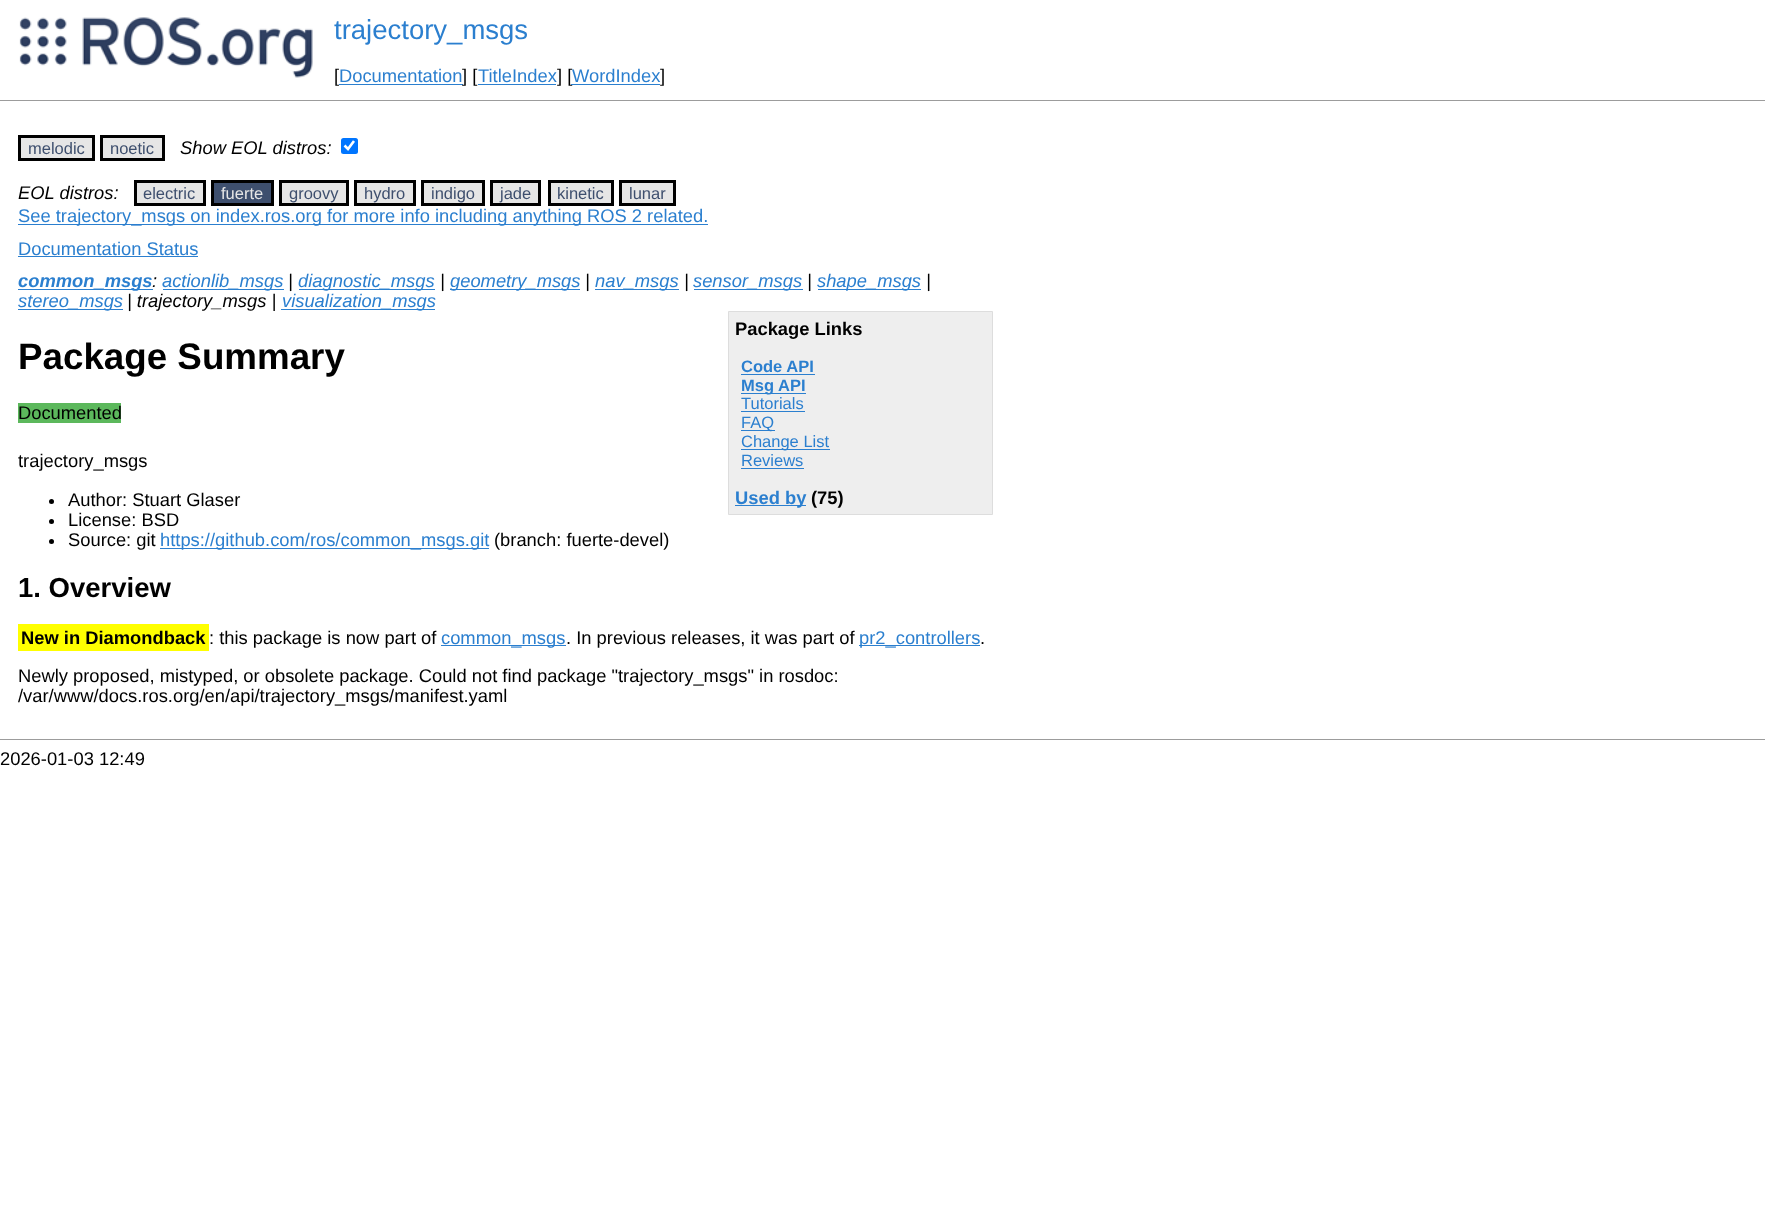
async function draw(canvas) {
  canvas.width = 1765;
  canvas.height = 1219;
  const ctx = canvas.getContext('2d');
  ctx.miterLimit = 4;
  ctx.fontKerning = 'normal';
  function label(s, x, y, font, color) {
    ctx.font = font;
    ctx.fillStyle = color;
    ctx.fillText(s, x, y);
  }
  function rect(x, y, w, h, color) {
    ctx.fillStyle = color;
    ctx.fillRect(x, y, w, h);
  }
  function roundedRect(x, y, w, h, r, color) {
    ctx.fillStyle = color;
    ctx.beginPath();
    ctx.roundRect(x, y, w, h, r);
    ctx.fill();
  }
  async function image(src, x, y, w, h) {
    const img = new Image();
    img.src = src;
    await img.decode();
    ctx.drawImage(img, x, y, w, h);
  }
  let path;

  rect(0, 0, 1765, 1219, '#fff');
  await image('assets/img1.png', 19, 17, 294, 61);
  label('trajectory_msgs', 334, 39, '27.5px Liberation Sans', '#2b7fcf');
  label('[', 334, 82, '18.35px Liberation Sans', '#000');
  label('Documentation', 339, 82, '18.35px Liberation Sans', '#2b7fcf');
  rect(339, 84, 124, 1, '#2b7fcf');
  label('] [', 462, 82, '18.35px Liberation Sans', '#000');
  label('TitleIndex', 478, 82, '18.35px Liberation Sans', '#2b7fcf');
  rect(478, 84, 78, 1, '#2b7fcf');
  label('] [', 557, 82, '18.35px Liberation Sans', '#000');
  label('WordIndex', 572, 82, '18.35px Liberation Sans', '#2b7fcf');
  rect(571, 84, 89, 1, '#2b7fcf');
  label(']', 660, 82, '18.35px Liberation Sans', '#000');
  rect(0, 100, 1765, 1, '#9c9c9c');
  ctx.fillStyle = '#e6e6e6';
  ctx.beginPath();
  ctx.rect(19.5, 136.5, 74, 23);
  ctx.fill();
  ctx.strokeStyle = '#000';
  ctx.lineWidth = 3;
  ctx.stroke();
  label('melodic', 28, 154, '16.5px Liberation Sans', '#3e4f6e');
  ctx.fillStyle = '#e6e6e6';
  ctx.beginPath();
  ctx.rect(101.5, 136.5, 62, 23);
  ctx.fill();
  ctx.stroke();
  label('noetic', 110, 154, '16.5px Liberation Sans', '#3e4f6e');
  label('Show EOL distros:', 180, 154, 'italic 18.35px Liberation Sans', '#000');
  roundedRect(341, 138, 17, 16, 2.5, '#0075ff');
  path = new Path2D('M344.5 145.5L348 149L354 141');
  ctx.strokeStyle = '#fff';
  ctx.lineWidth = 2.6;
  ctx.stroke(path);
  label('EOL distros:', 18, 199, 'italic 18.35px Liberation Sans', '#000');
  ctx.fillStyle = '#e6e6e6';
  ctx.beginPath();
  ctx.rect(135.5, 181.5, 69, 23);
  ctx.fill();
  ctx.strokeStyle = '#000';
  ctx.lineWidth = 3;
  ctx.stroke();
  label('electric', 143, 199, '16.5px Liberation Sans', '#3e4f6e');
  ctx.beginPath();
  ctx.rect(212.5, 181.5, 60, 23);
  ctx.fill();
  ctx.stroke();
  label('fuerte', 221, 199, '16.5px Liberation Sans', '#e6e6e6');
  ctx.beginPath();
  ctx.rect(280.5, 181.5, 67, 23);
  ctx.fill();
  ctx.stroke();
  label('groovy', 289, 199, '16.5px Liberation Sans', '#3e4f6e');
  ctx.fillStyle = '#e6e6e6';
  ctx.beginPath();
  ctx.rect(355.5, 181.5, 59, 23);
  ctx.fill();
  ctx.stroke();
  label('hydro', 364, 199, '16.5px Liberation Sans', '#3e4f6e');
  ctx.fillStyle = '#e6e6e6';
  ctx.beginPath();
  ctx.rect(422.5, 181.5, 61, 23);
  ctx.fill();
  ctx.stroke();
  label('indigo', 431, 199, '16.5px Liberation Sans', '#3e4f6e');
  ctx.fillStyle = '#e6e6e6';
  ctx.beginPath();
  ctx.rect(491.5, 181.5, 48, 23);
  ctx.fill();
  ctx.stroke();
  label('jade', 500, 199, '16.5px Liberation Sans', '#3e4f6e');
  ctx.fillStyle = '#e6e6e6';
  ctx.beginPath();
  ctx.rect(549.5, 181.5, 63, 23);
  ctx.fill();
  ctx.stroke();
  label('kinetic', 557, 199, '16.5px Liberation Sans', '#3e4f6e');
  ctx.fillStyle = '#e6e6e6';
  ctx.beginPath();
  ctx.rect(620.5, 181.5, 54, 23);
  ctx.fill();
  ctx.stroke();
  label('lunar', 629, 199, '16.5px Liberation Sans', '#3e4f6e');
  rect(18, 224, 690, 1, '#2b7fcf');
  label('See trajectory_msgs on index.ros.org for more info including anything ROS 2 related.', 18, 222, '18.35px Liberation Sans', '#2b7fcf');
  label('Documentation Status', 18, 255, '18.35px Liberation Sans', '#2b7fcf');
  rect(18, 256, 180, 1, '#2b7fcf');
  rect(18, 289, 135, 1, '#2b7fcf');
  label('common_msgs', 18, 287, 'italic bold 18.35px Liberation Sans', '#2b7fcf');
  label(':', 152, 287, 'italic 18.35px Liberation Sans', '#000');
  rect(163, 289, 121, 1, '#2b7fcf');
  label('actionlib_msgs', 162, 287, 'italic 18.35px Liberation Sans', '#2b7fcf');
  label('|', 288, 287, 'italic 18.35px Liberation Sans', '#000');
  rect(299, 289, 136, 1, '#2b7fcf');
  label('diagnostic_msgs', 298, 287, 'italic 18.35px Liberation Sans', '#2b7fcf');
  label('|', 440, 287, 'italic 18.35px Liberation Sans', '#000');
  rect(450, 289, 130, 1, '#2b7fcf');
  label('geometry_msgs', 450, 287, 'italic 18.35px Liberation Sans', '#2b7fcf');
  label('|', 585, 287, 'italic 18.35px Liberation Sans', '#000');
  rect(595, 289, 84, 1, '#2b7fcf');
  label('nav_msgs', 595, 287, 'italic 18.35px Liberation Sans', '#2b7fcf');
  label('|', 684, 287, 'italic 18.35px Liberation Sans', '#000');
  rect(694, 289, 109, 1, '#2b7fcf');
  label('sensor_msgs', 693, 287, 'italic 18.35px Liberation Sans', '#2b7fcf');
  label('|', 807, 287, 'italic 18.35px Liberation Sans', '#000');
  rect(818, 289, 103, 1, '#2b7fcf');
  label('shape_msgs', 817, 287, 'italic 18.35px Liberation Sans', '#2b7fcf');
  label('|', 926, 287, 'italic 18.35px Liberation Sans', '#000');
  rect(18, 309, 105, 1, '#2b7fcf');
  label('stereo_msgs', 18, 307, 'italic 18.35px Liberation Sans', '#2b7fcf');
  label('| trajectory_msgs |', 127, 307, 'italic 18.35px Liberation Sans', '#000');
  rect(281, 309, 154, 1, '#2b7fcf');
  label('visualization_msgs', 282, 307, 'italic 18.35px Liberation Sans', '#2b7fcf');
  label('Package Summary', 18, 369, 'bold 36.75px Liberation Sans', '#000');
  ctx.fillStyle = '#eee';
  ctx.beginPath();
  ctx.rect(728.5, 311.5, 264, 203);
  ctx.fill();
  ctx.strokeStyle = '#ddd';
  ctx.lineWidth = 1;
  ctx.stroke();
  label('Package Links', 735, 335, 'bold 18.35px Liberation Sans', '#000');
  label('Code API', 741, 372, 'bold 16.5px Liberation Sans', '#2b7fcf');
  rect(741, 374, 74, 1, '#2b7fcf');
  rect(741, 393, 65, 1, '#2b7fcf');
  label('Msg API', 741, 391, 'bold 16.5px Liberation Sans', '#2b7fcf');
  label('Tutorials', 741, 409, '16.5px Liberation Sans', '#2b7fcf');
  rect(741, 411, 64, 1, '#2b7fcf');
  rect(741, 430, 34, 1, '#2b7fcf');
  label('FAQ', 741, 428, '16.5px Liberation Sans', '#2b7fcf');
  rect(741, 449, 89, 1, '#2b7fcf');
  label('Change List', 741, 447, '16.5px Liberation Sans', '#2b7fcf');
  label('Reviews', 741, 466, '16.5px Liberation Sans', '#2b7fcf');
  rect(741, 468, 63, 1, '#2b7fcf');
  rect(735, 505, 71, 1, '#2b7fcf');
  label('Used by', 735, 504, 'bold 18.35px Liberation Sans', '#2b7fcf');
  label('(75)', 811, 504, 'bold 18.35px Liberation Sans', '#000');
  rect(18, 403, 103, 20, '#5cb85c');
  label('Documented', 18, 419, '18.35px Liberation Sans', '#000');
  label('trajectory_msgs', 18, 467, '18.35px Liberation Sans', '#000');
  ctx.beginPath();
  ctx.arc(51.5, 501.5, 2.5, 0, 2 * Math.PI);
  ctx.fill();
  label('Author: Stuart Glaser', 68, 506, '18.35px Liberation Sans', '#000');
  ctx.beginPath();
  ctx.arc(51.5, 521.5, 2.5, 0, 2 * Math.PI);
  ctx.fill();
  label('License: BSD', 68, 526, '18.35px Liberation Sans', '#000');
  ctx.beginPath();
  ctx.arc(51.5, 541.5, 2.5, 0, 2 * Math.PI);
  ctx.fill();
  label('Source: git', 68, 546, '18.35px Liberation Sans', '#000');
  rect(160, 548, 329, 1, '#2b7fcf');
  label('https://github.com/ros/common_msgs.git', 160, 546, '18.35px Liberation Sans', '#2b7fcf');
  label('(branch: fuerte-devel)', 494, 546, '18.35px Liberation Sans', '#000');
  label('1. Overview', 18, 597, 'bold 27.5px Liberation Sans', '#000');
  rect(18, 624, 191, 27, '#ff0');
  label('New in Diamondback', 21, 644, 'bold 18.35px Liberation Sans', '#000');
  label(': this package is now part of', 209, 644, '18.35px Liberation Sans', '#000');
  rect(441, 645, 125, 1, '#2b7fcf');
  label('common_msgs', 441, 644, '18.35px Liberation Sans', '#2b7fcf');
  label('. In previous releases, it was part of', 566, 644, '18.35px Liberation Sans', '#000');
  rect(859, 645, 121, 1, '#2b7fcf');
  label('pr2_controllers', 859, 644, '18.35px Liberation Sans', '#2b7fcf');
  label('.', 980, 644, '18.35px Liberation Sans', '#000');
  label('Newly proposed, mistyped, or obsolete package. Could not find package "trajectory_msgs" in rosdoc:', 18, 682, '18.35px Liberation Sans', '#000');
  label('/var/www/docs.ros.org/en/api/trajectory_msgs/manifest.yaml', 18, 702, '18.35px Liberation Sans', '#000');
  rect(0, 739, 1765, 1, '#9c9c9c');
  label('2026-01-03 12:49', 0, 765, '18.35px Liberation Sans', '#000');
}

draw(document.querySelector('canvas'));
